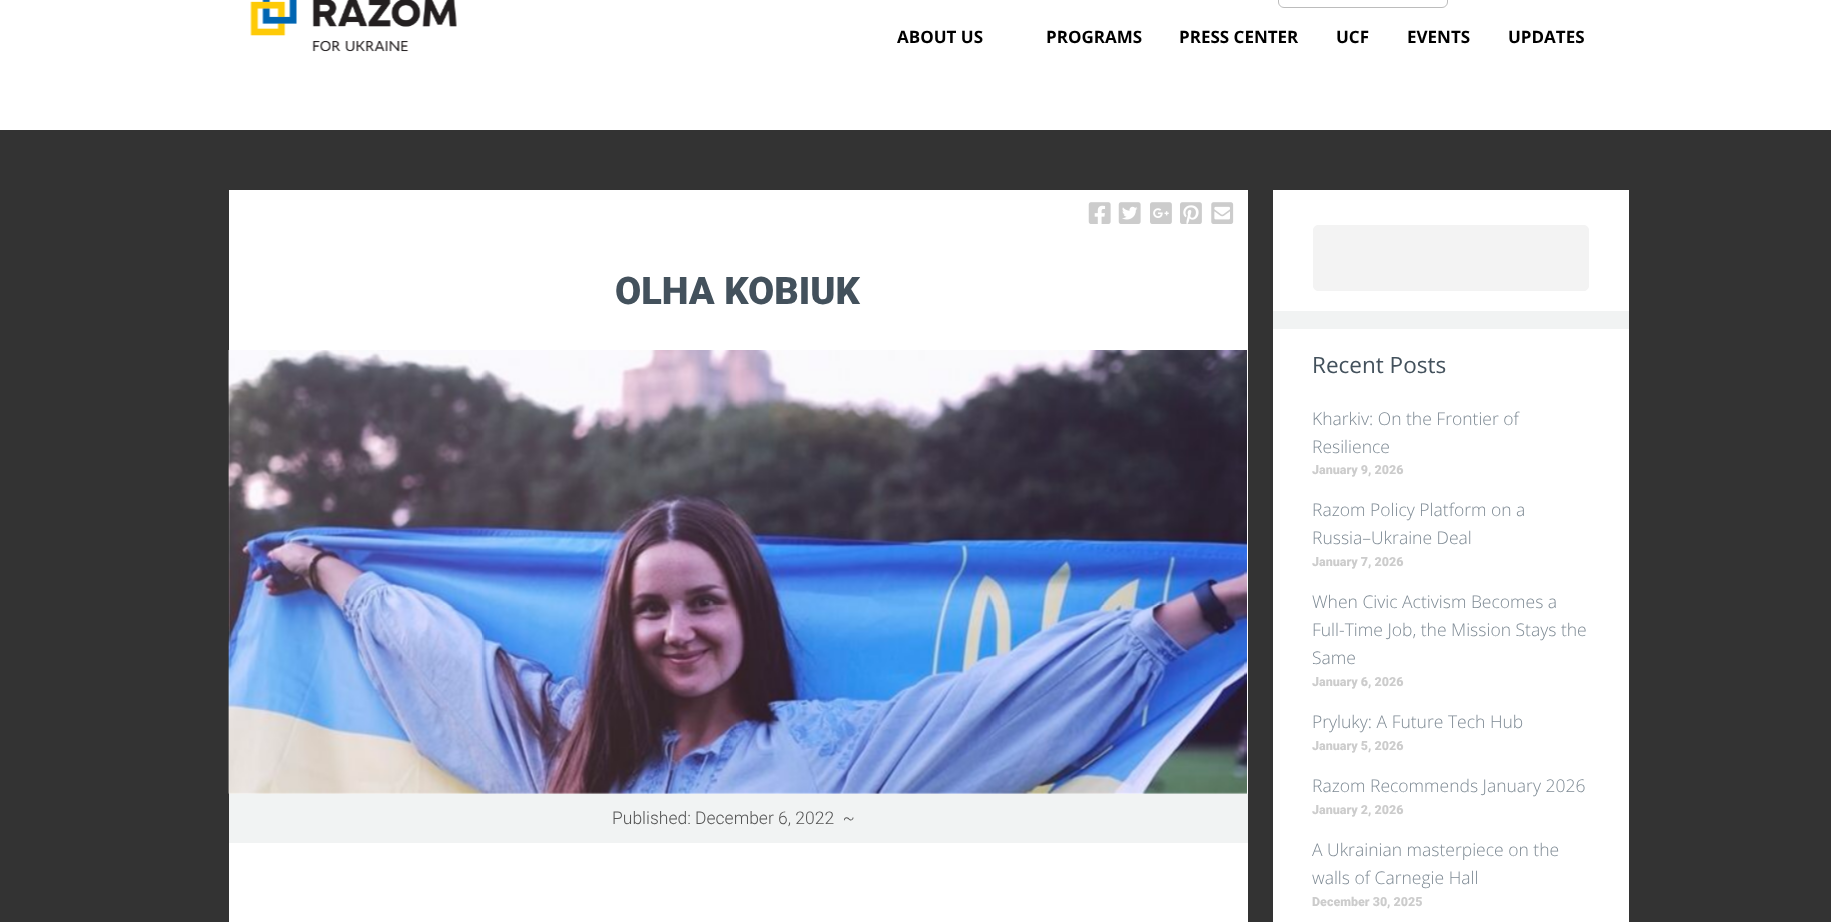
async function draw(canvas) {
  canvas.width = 1831;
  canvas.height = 922;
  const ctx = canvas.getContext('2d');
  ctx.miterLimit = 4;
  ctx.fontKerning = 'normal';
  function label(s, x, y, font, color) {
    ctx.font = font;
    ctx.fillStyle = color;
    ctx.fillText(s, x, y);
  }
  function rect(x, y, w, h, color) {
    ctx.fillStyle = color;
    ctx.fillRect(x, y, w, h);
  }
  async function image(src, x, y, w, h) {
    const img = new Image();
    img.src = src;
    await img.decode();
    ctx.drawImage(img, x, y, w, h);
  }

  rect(0, 0, 1831, 922, '#333');
  rect(0, 0, 1831, 130, '#fff');
  await image('assets/img1.png', 250, 0, 207, 52);
  ctx.beginPath();
  ctx.roundRect(1278.5, -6.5, 169, 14, 5.5);
  ctx.strokeStyle = '#bcbcbc';
  ctx.stroke();
  label('ABOUT US', 897, 43, 'bold 17px Open Sans', '#000');
  label('PROGRAMS', 1046, 43, 'bold 17px Open Sans', '#000');
  label('PRESS CENTER', 1179, 43, 'bold 17px Open Sans', '#000');
  label('UCF', 1336, 43, 'bold 17px Open Sans', '#000');
  label('EVENTS', 1407, 43, 'bold 17px Open Sans', '#000');
  label('UPDATES', 1508, 43, 'bold 17px Open Sans', '#000');
  rect(229, 190, 1019, 732, '#fff');
  await image('assets/img2.png', 1088, 202, 23, 22);
  await image('assets/img3.png', 1118, 202, 23, 22);
  await image('assets/img4.png', 1150, 202, 22, 22);
  await image('assets/img5.png', 1180, 202, 22, 22);
  await image('assets/img6.png', 1211, 202, 23, 22);
  label('OLHA KOBIUK', 615, 304, '900 38px Roboto', '#43515c');
  await image('assets/img7.png', 228, 350, 1019, 444);
  rect(229, 794, 1019, 49, '#f1f3f3');
  label('Published: December 6, 2022  ~', 612, 824, '300 17.5px Roboto', '#555');
  rect(1273, 190, 356, 732, '#fff');
  rect(1273, 311, 356, 18, '#f1f3f3');
  ctx.fillStyle = '#f3f3f3';
  ctx.beginPath();
  ctx.roundRect(1313.5, 225.5, 275, 65, 4.5);
  ctx.fill();
  ctx.strokeStyle = '#f3f3f3';
  ctx.stroke();
  label('Recent Posts', 1312, 373, '22.5px Open Sans', '#43515c');
  label('Kharkiv: On the Frontier of', 1312, 425, '300 17.5px Open Sans', '#7e8a94');
  label('Resilience', 1312, 453, '300 17.5px Open Sans', '#7e8a94');
  label('January 9, 2026', 1312, 474, '900 12.5px Roboto', '#ccc');
  label('Razom Policy Platform on a', 1312, 516, '300 17.5px Open Sans', '#7e8a94');
  label('Russia–Ukraine Deal', 1312, 544, '300 17.5px Open Sans', '#7e8a94');
  label('January 7, 2026', 1312, 566, '900 12.5px Roboto', '#ccc');
  label('When Civic Activism Becomes a', 1312, 608, '300 17.5px Open Sans', '#7e8a94');
  label('Full-Time Job, the Mission Stays the', 1312, 636, '300 17.5px Open Sans', '#7e8a94');
  label('Same', 1312, 664, '300 17.5px Open Sans', '#7e8a94');
  label('January 6, 2026', 1312, 686, '900 12.5px Roboto', '#ccc');
  label('Pryluky: A Future Tech Hub', 1312, 728, '300 17.5px Open Sans', '#7e8a94');
  label('January 5, 2026', 1312, 750, '900 12.5px Roboto', '#ccc');
  label('Razom Recommends January 2026', 1312, 792, '300 17.5px Open Sans', '#7e8a94');
  label('January 2, 2026', 1312, 814, '900 12.5px Roboto', '#ccc');
  label('A Ukrainian masterpiece on the', 1312, 856, '300 17.5px Open Sans', '#7e8a94');
  label('walls of Carnegie Hall', 1312, 884, '300 17.5px Open Sans', '#7e8a94');
  label('December 30, 2025', 1312, 906, '900 12.5px Roboto', '#ccc');
}

draw(document.querySelector('canvas'));
